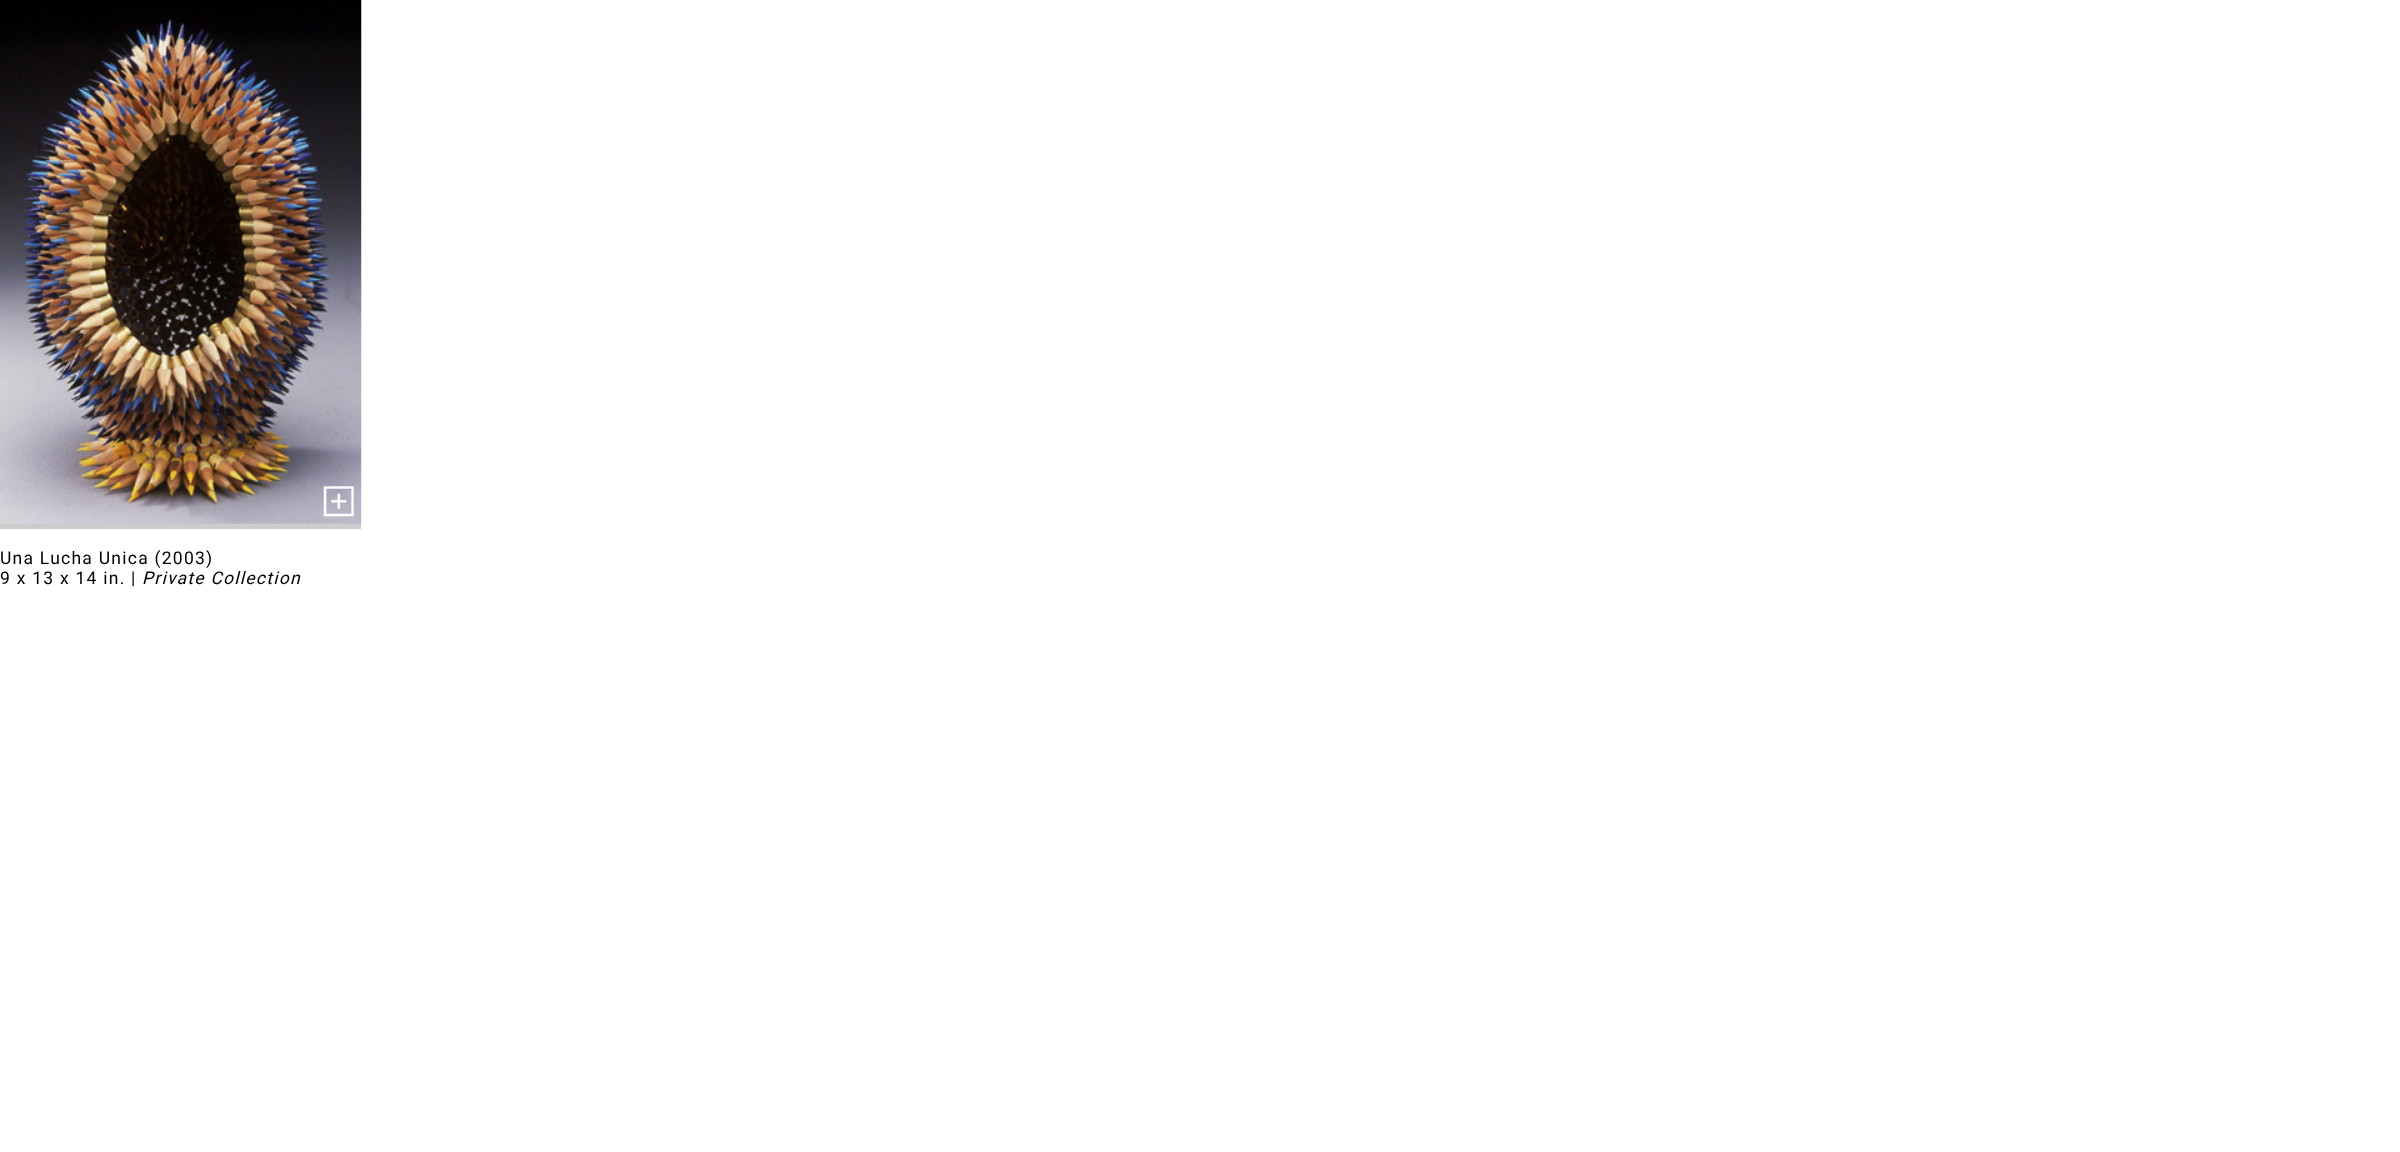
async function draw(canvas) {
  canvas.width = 2400;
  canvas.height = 1152;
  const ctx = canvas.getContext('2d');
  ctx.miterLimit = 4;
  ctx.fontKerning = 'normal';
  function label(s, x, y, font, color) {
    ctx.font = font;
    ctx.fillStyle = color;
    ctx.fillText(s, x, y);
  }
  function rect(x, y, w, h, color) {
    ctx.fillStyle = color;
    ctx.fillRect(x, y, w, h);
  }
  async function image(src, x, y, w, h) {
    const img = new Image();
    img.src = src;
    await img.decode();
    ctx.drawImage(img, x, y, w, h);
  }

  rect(0, 0, 2400, 1152, '#fff');
  rect(0, 523, 361, 6, '#ccc');
  await image('assets/img1.png', 0, 0, 362, 524);
  ctx.letterSpacing = '1.25px';
  label('Una Lucha Unica (2003)', 0, 564, '17.5px Roboto', '#000');
  label('9 x 13 x 14 in. |', 0, 584, '17.5px Roboto', '#000');
  label('Private Collection', 142, 584, 'italic 17.5px Roboto', '#000');
}

draw(document.querySelector('canvas'));
